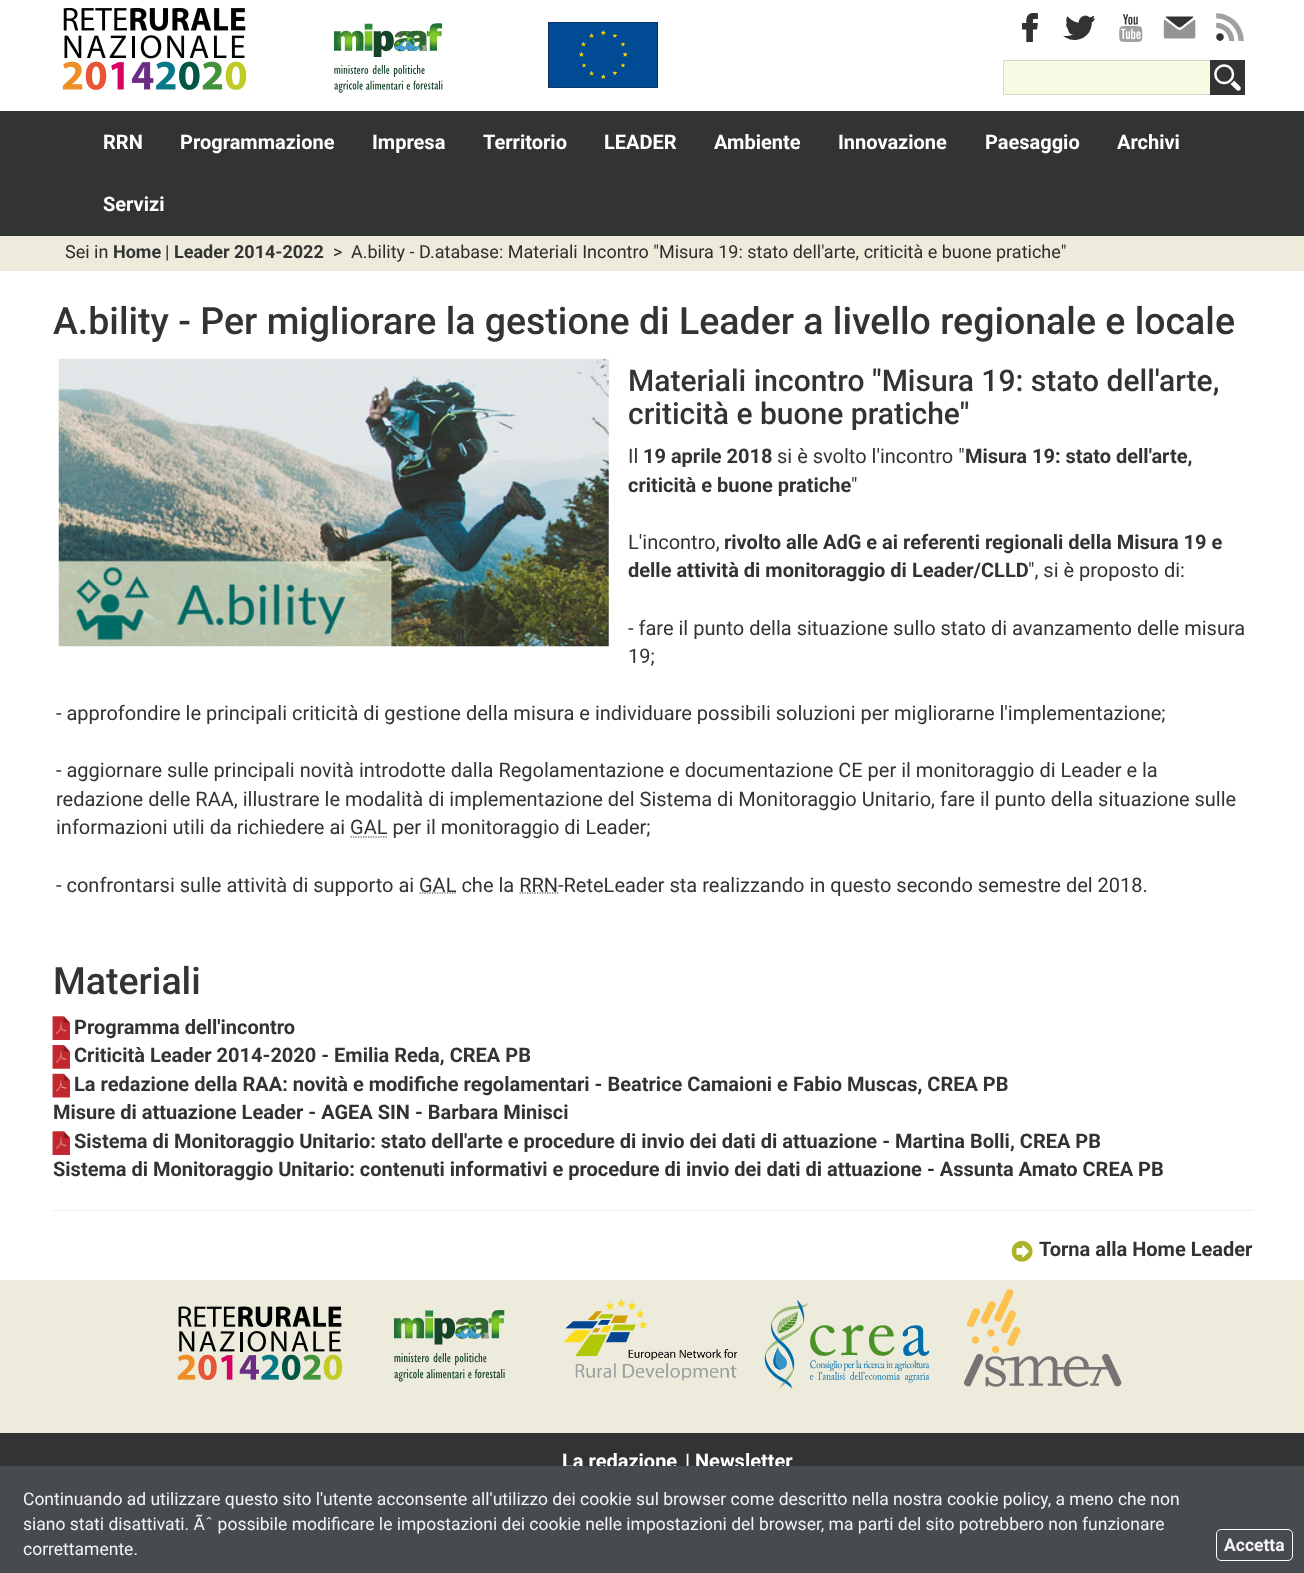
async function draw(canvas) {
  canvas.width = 1304;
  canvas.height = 1573;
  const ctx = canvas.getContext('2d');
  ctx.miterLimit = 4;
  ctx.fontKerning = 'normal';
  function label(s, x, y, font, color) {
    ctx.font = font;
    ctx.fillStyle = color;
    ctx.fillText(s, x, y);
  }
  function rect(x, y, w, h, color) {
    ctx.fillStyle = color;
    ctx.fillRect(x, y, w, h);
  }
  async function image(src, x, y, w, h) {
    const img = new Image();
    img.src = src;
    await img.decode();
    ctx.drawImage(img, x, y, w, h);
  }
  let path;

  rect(0, 0, 1304, 1573, '#fff');
  await image('assets/img1.png', 62, 7, 185, 83);
  await image('assets/img2.png', 334, 23, 109, 70);
  await image('assets/img3.png', 548, 22, 110, 66);
  await image('assets/img4.png', 1022, 13, 16, 29);
  await image('assets/img5.png', 1063, 15, 32, 25);
  await image('assets/img6.png', 1119, 14, 24, 28);
  await image('assets/img7.png', 1163, 16, 33, 23);
  await image('assets/img8.png', 1216, 13, 28, 28);
  rect(1004, 61, 206, 33, '#f8fae3');
  ctx.strokeStyle = '#d8d9ce';
  ctx.strokeRect(1003.5, 60.5, 209, 34);
  await image('assets/img9.png', 1210, 60, 35, 35);
  rect(0, 111, 1304, 125, '#323433');
  label('RRN', 103, 149, 'bold 20px Roboto', '#fff');
  label('Programmazione', 180, 149, 'bold 20px Roboto', '#fff');
  label('Impresa', 372, 149, 'bold 20px Roboto', '#fff');
  label('Territorio', 483, 149, 'bold 20px Roboto', '#fff');
  label('LEADER', 604, 149, 'bold 20px Roboto', '#fff');
  label('Ambiente', 714, 149, 'bold 20px Roboto', '#fff');
  label('Innovazione', 838, 149, 'bold 20px Roboto', '#fff');
  label('Paesaggio', 985, 149, 'bold 20px Roboto', '#fff');
  label('Archivi', 1117, 149, 'bold 20px Roboto', '#fff');
  label('Servizi', 103, 211, 'bold 20px Roboto', '#fff');
  rect(0, 236, 1304, 35, '#edebdb');
  label('Sei in', 65, 258, '18px Roboto', '#2f2c2c');
  label('Home', 113, 258, 'bold 18px Roboto', '#333');
  label('|', 165, 258, '18px Roboto', '#2f2c2c');
  label('Leader 2014-2022', 174, 258, 'bold 18px Roboto', '#333');
  label('>', 333, 258, '18px Roboto', '#2f2c2c');
  label('A.bility - D.atabase: Materiali Incontro "Misura 19: stato dell\'arte, criticità e buone pratiche"', 351, 258, '18px Roboto', '#2f2c2c');
  label('A.bility - Per migliorare la gestione di Leader a livello regionale e locale', 53, 334, '500 37.5px Roboto', '#333');
  await image('assets/img10.png', 58, 358, 551, 289);
  label('Materiali incontro "Misura 19: stato dell\'arte,', 628, 391, '500 30px Roboto', '#333');
  label('criticità e buone pratiche"', 628, 424, '500 30px Roboto', '#333');
  label('Il', 628, 463, '20px Roboto', '#333');
  label('19 aprile 2018', 643, 463, 'bold 20px Roboto', '#333');
  label('si è svolto l\'incontro "', 777, 463, '20px Roboto', '#333');
  label('Misura 19: stato dell\'arte,', 965, 463, 'bold 20px Roboto', '#333');
  label('criticità e buone pratiche', 628, 492, 'bold 20px Roboto', '#333');
  label('"', 851, 492, '20px Roboto', '#333');
  label('L\'incontro,', 628, 549, '20px Roboto', '#333');
  label('rivolto alle AdG e ai referenti regionali della Misura 19 e', 724, 549, 'bold 20px Roboto', '#333');
  label('delle attività di monitoraggio di Leader/CLLD', 628, 577, 'bold 20px Roboto', '#333');
  label('", si è proposto di:', 1028, 577, '20px Roboto', '#333');
  label('- fare il punto della situazione sullo stato di avanzamento delle misura', 628, 635, '20px Roboto', '#333');
  label('19;', 628, 663, '20px Roboto', '#333');
  label('- approfondire le principali criticità di gestione della misura e individuare possibili soluzioni per migliorarne l\'implementazione;', 56, 720, '20px Roboto', '#333');
  label('- aggiornare sulle principali novità introdotte dalla Regolamentazione e documentazione CE per il monitoraggio di Leader e la', 56, 777, '20px Roboto', '#333');
  label('redazione delle RAA, illustrare le modalità di implementazione del Sistema di Monitoraggio Unitario, fare il punto della situazione sulle', 56, 806, '20px Roboto', '#333');
  label('informazioni utili da richiedere ai GAL per il monitoraggio di Leader;', 56, 834, '20px Roboto', '#333');
  path = new Path2D('M350.5 837H388');
  ctx.strokeStyle = '#333';
  ctx.lineWidth = 1.2;
  ctx.setLineDash([1.25, 1.25]);
  ctx.stroke(path);
  label('- confrontarsi sulle attività di supporto ai', 56, 892, '20px Roboto', '#333');
  path = new Path2D('M419.5 893H457');
  ctx.stroke(path);
  label('GAL che la RRN', 419, 892, '20px Roboto', '#333');
  path = new Path2D('M519.5 893H558.5');
  ctx.stroke(path);
  label('-ReteLeader sta realizzando in questo secondo semestre del 2018.', 558, 892, '20px Roboto', '#333');
  label('Materiali', 53, 994, '500 37.5px Roboto', '#333');
  await image('assets/img11.png', 52, 1016, 18, 24);
  label('Programma dell\'incontro', 74, 1034, 'bold 20px Roboto', '#333');
  await image('assets/img12.png', 52, 1045, 18, 24);
  label('Criticità Leader 2014-2020 - Emilia Reda, CREA PB', 74, 1062, 'bold 20px Roboto', '#333');
  await image('assets/img13.png', 52, 1073, 18, 25);
  label('La redazione della RAA: novità e modifiche regolamentari - Beatrice Camaioni e Fabio Muscas, CREA PB', 74, 1091, 'bold 20px Roboto', '#333');
  label('Misure di attuazione Leader - AGEA SIN - Barbara Minisci', 53, 1119, 'bold 20px Roboto', '#333');
  await image('assets/img11.png', 52, 1131, 18, 24);
  label('Sistema di Monitoraggio Unitario: stato dell\'arte e procedure di invio dei dati di attuazione - Martina Bolli, CREA PB', 74, 1148, 'bold 20px Roboto', '#333');
  label('Sistema di Monitoraggio Unitario: contenuti informativi e procedure di invio dei dati di attuazione - Assunta Amato CREA PB', 53, 1176, 'bold 20px Roboto', '#333');
  rect(53, 1210, 1200, 1, '#eee');
  await image('assets/img14.png', 1011, 1240, 22, 22);
  label('Torna alla Home Leader', 1039, 1256, 'bold 20px Roboto', '#333');
  rect(0, 1280, 1304, 153, '#edebdb');
  await image('assets/img15.png', 177, 1306, 166, 74);
  await image('assets/img16.png', 394, 1310, 111, 72);
  await image('assets/img17.png', 563, 1298, 175, 83);
  await image('assets/img18.png', 764, 1300, 166, 89);
  await image('assets/img19.png', 964, 1289, 158, 98);
  rect(113, 1421, 1080, 1, '#eee');
  rect(0, 1433, 1304, 33, '#323433');
  label('La redazione', 562, 1468, 'bold 20px Roboto', '#fff');
  label('| Newsletter', 685, 1468, 'bold 20px Roboto', '#fff');
  rect(0, 1466, 1304, 107, '#464b4f');
  label('Continuando ad utilizzare questo sito l\'utente acconsente all\'utilizzo dei cookie sul browser come descritto nella nostra cookie policy, a meno che non', 23, 1505, '17.5px Roboto', '#f5f3f3');
  label('siano stati disattivati. Ãˆ possibile modificare le impostazioni dei cookie nelle impostazioni del browser, ma parti del sito potrebbero non funzionare', 23, 1530, '17.5px Roboto', '#f5f3f3');
  label('correttamente.', 23, 1555, '17.5px Roboto', '#f5f3f3');
  ctx.beginPath();
  ctx.roundRect(1216.5, 1529.5, 76, 31, 4.5);
  ctx.strokeStyle = '#fff';
  ctx.lineWidth = 1;
  ctx.setLineDash([]);
  ctx.stroke();
  label('Accetta', 1224, 1551, 'bold 17.5px Roboto', '#f5f3f3');
}

draw(document.querySelector('canvas'));
